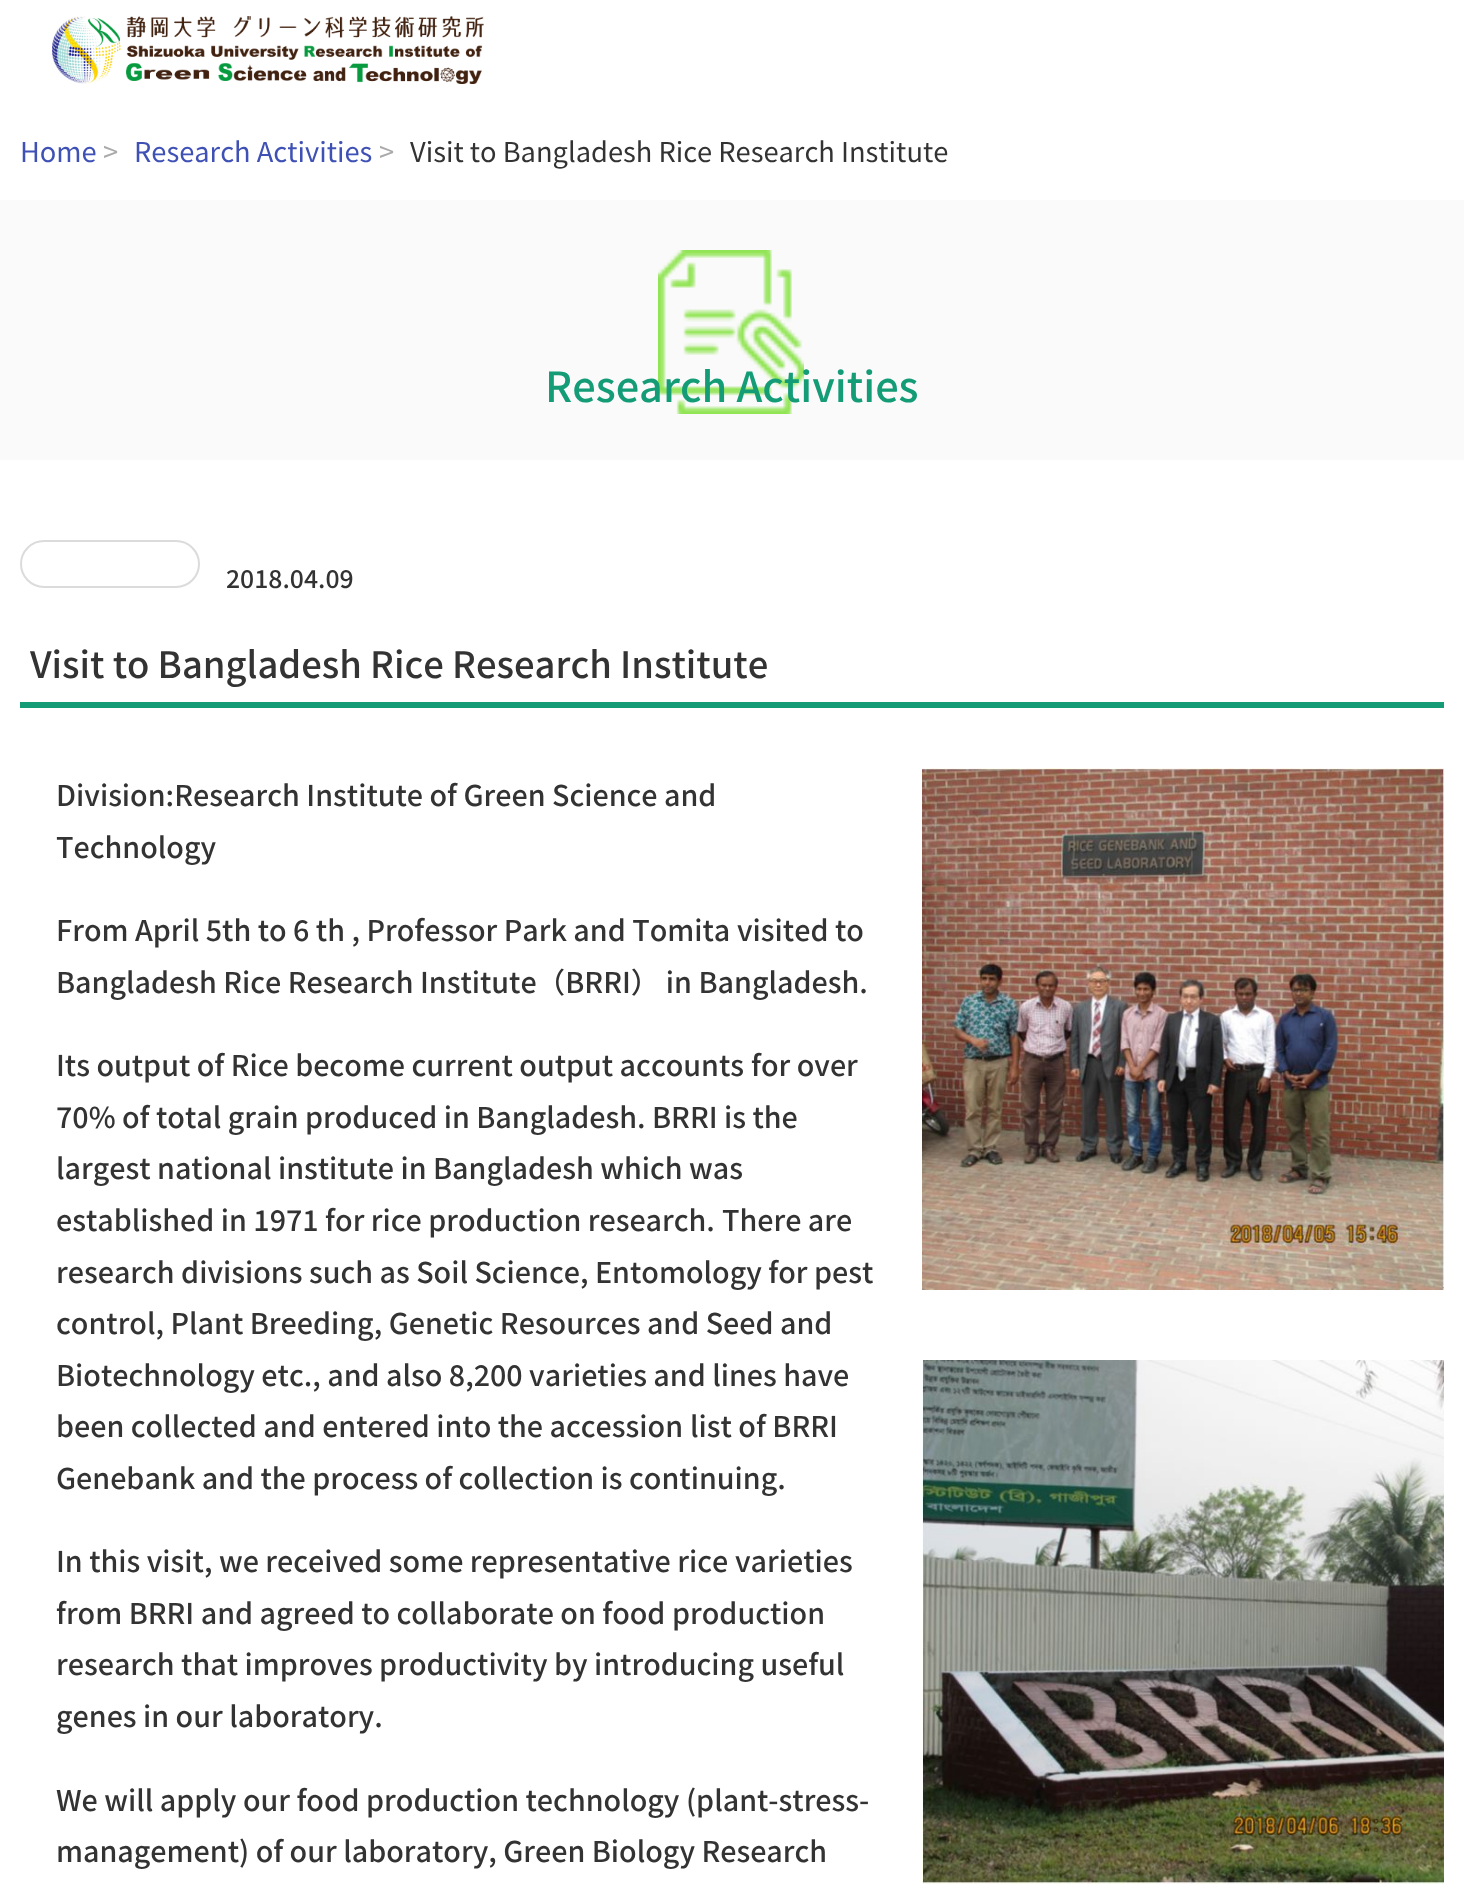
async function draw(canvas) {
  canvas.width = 1464;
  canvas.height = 1890;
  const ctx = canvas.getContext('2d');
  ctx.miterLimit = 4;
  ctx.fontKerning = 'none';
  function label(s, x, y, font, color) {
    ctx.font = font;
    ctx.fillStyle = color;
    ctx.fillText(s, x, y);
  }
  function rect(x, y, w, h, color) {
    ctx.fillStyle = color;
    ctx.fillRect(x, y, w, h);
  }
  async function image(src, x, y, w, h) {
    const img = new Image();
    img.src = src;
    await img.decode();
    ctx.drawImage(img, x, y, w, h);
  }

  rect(0, 0, 1464, 1890, '#fff');
  await image('assets/img1.png', 52, 16, 432, 68);
  label('Home', 20, 162, '27.25px Noto Sans JP', '#3f51b5');
  label('>', 103, 162, '27.25px Noto Sans JP', '#aaa');
  label('Research Activities', 134, 162, '27.25px Noto Sans JP', '#3f51b5');
  label('>', 379, 162, '27.25px Noto Sans JP', '#aaa');
  label('Visit to Bangladesh Rice Research Institute', 410, 162, '27.25px Noto Sans JP', '#333');
  rect(0, 200, 1464, 260, '#fafafa');
  await image('assets/img2.png', 658, 250, 146, 164);
  label('Research Activities', 545, 402, '500 41.5px Noto Sans JP', '#149c77');
  ctx.beginPath();
  ctx.roundRect(21, 541, 178, 46, 23);
  ctx.strokeStyle = '#dbdbdb';
  ctx.lineWidth = 2;
  ctx.stroke();
  label('2018.04.09', 226, 588, '500 24.75px Noto Sans JP', '#333');
  rect(20, 702, 1424, 6, '#149c77');
  label('Visit to Bangladesh Rice Research Institute', 30, 678, '500 36.4px Noto Sans JP', '#333');
  label('Division:Research Institute of Green Science and', 56, 806, '500 28.65px Noto Sans JP', '#333');
  label('Technology', 56, 858, '500 28.65px Noto Sans JP', '#333');
  await image('assets/img3.png', 922, 768, 522, 522);
  label('From April 5th to 6 th , Professor Park and Tomita', 56, 941, '500 28.65px Noto Sans JP', '#333');
  label('visited to', 737, 941, '500 28.65px Noto Sans JP', '#333');
  label('Bangladesh Rice Research Institute（BRRI） in Bangladesh.', 56, 993, '500 28.65px Noto Sans JP', '#333');
  label('Its output of Rice become current output accounts', 56, 1076, '500 28.65px Noto Sans JP', '#333');
  label('for over', 751, 1076, '500 28.65px Noto Sans JP', '#333');
  label('70% of total grain produced in Bangladesh. BRRI is the', 56, 1128, '500 28.65px Noto Sans JP', '#333');
  label('largest national institute in Bangladesh which was', 56, 1179, '500 28.65px Noto Sans JP', '#333');
  label('established in 1971 for rice production research.', 56, 1231, '500 28.65px Noto Sans JP', '#333');
  label('There are', 722, 1231, '500 28.65px Noto Sans JP', '#333');
  label('research divisions such as Soil Science, Entomology for pest', 56, 1283, '500 28.65px Noto Sans JP', '#333');
  label('control, Plant Breeding, Genetic Resources and Seed and', 56, 1334, '500 28.65px Noto Sans JP', '#333');
  label('Biotechnology etc., and also 8,200 varieties and lines have', 56, 1386, '500 28.65px Noto Sans JP', '#333');
  label('been collected and entered into the accession', 56, 1437, '500 28.65px Noto Sans JP', '#333');
  label('list of BRRI', 690, 1437, '500 28.65px Noto Sans JP', '#333');
  label('Genebank and the process of collection is continuing.', 56, 1489, '500 28.65px Noto Sans JP', '#333');
  label('In this visit, we received some representative rice', 56, 1572, '500 28.65px Noto Sans JP', '#333');
  label('varieties', 735, 1572, '500 28.65px Noto Sans JP', '#333');
  label('from BRRI and agreed to collaborate on food', 56, 1624, '500 28.65px Noto Sans JP', '#333');
  label('production', 672, 1624, '500 28.65px Noto Sans JP', '#333');
  label('research that improves productivity by introducing useful', 56, 1675, '500 28.65px Noto Sans JP', '#333');
  label('genes in our laboratory.', 56, 1727, '500 28.65px Noto Sans JP', '#333');
  await image('assets/img4.png', 922, 1360, 522, 524);
  label('We will apply our food production technology (plant-stress-', 56, 1811, '500 28.65px Noto Sans JP', '#333');
  label('management) of our laboratory, Green Biology Research', 56, 1862, '500 28.65px Noto Sans JP', '#333');
}

draw(document.querySelector('canvas'));
